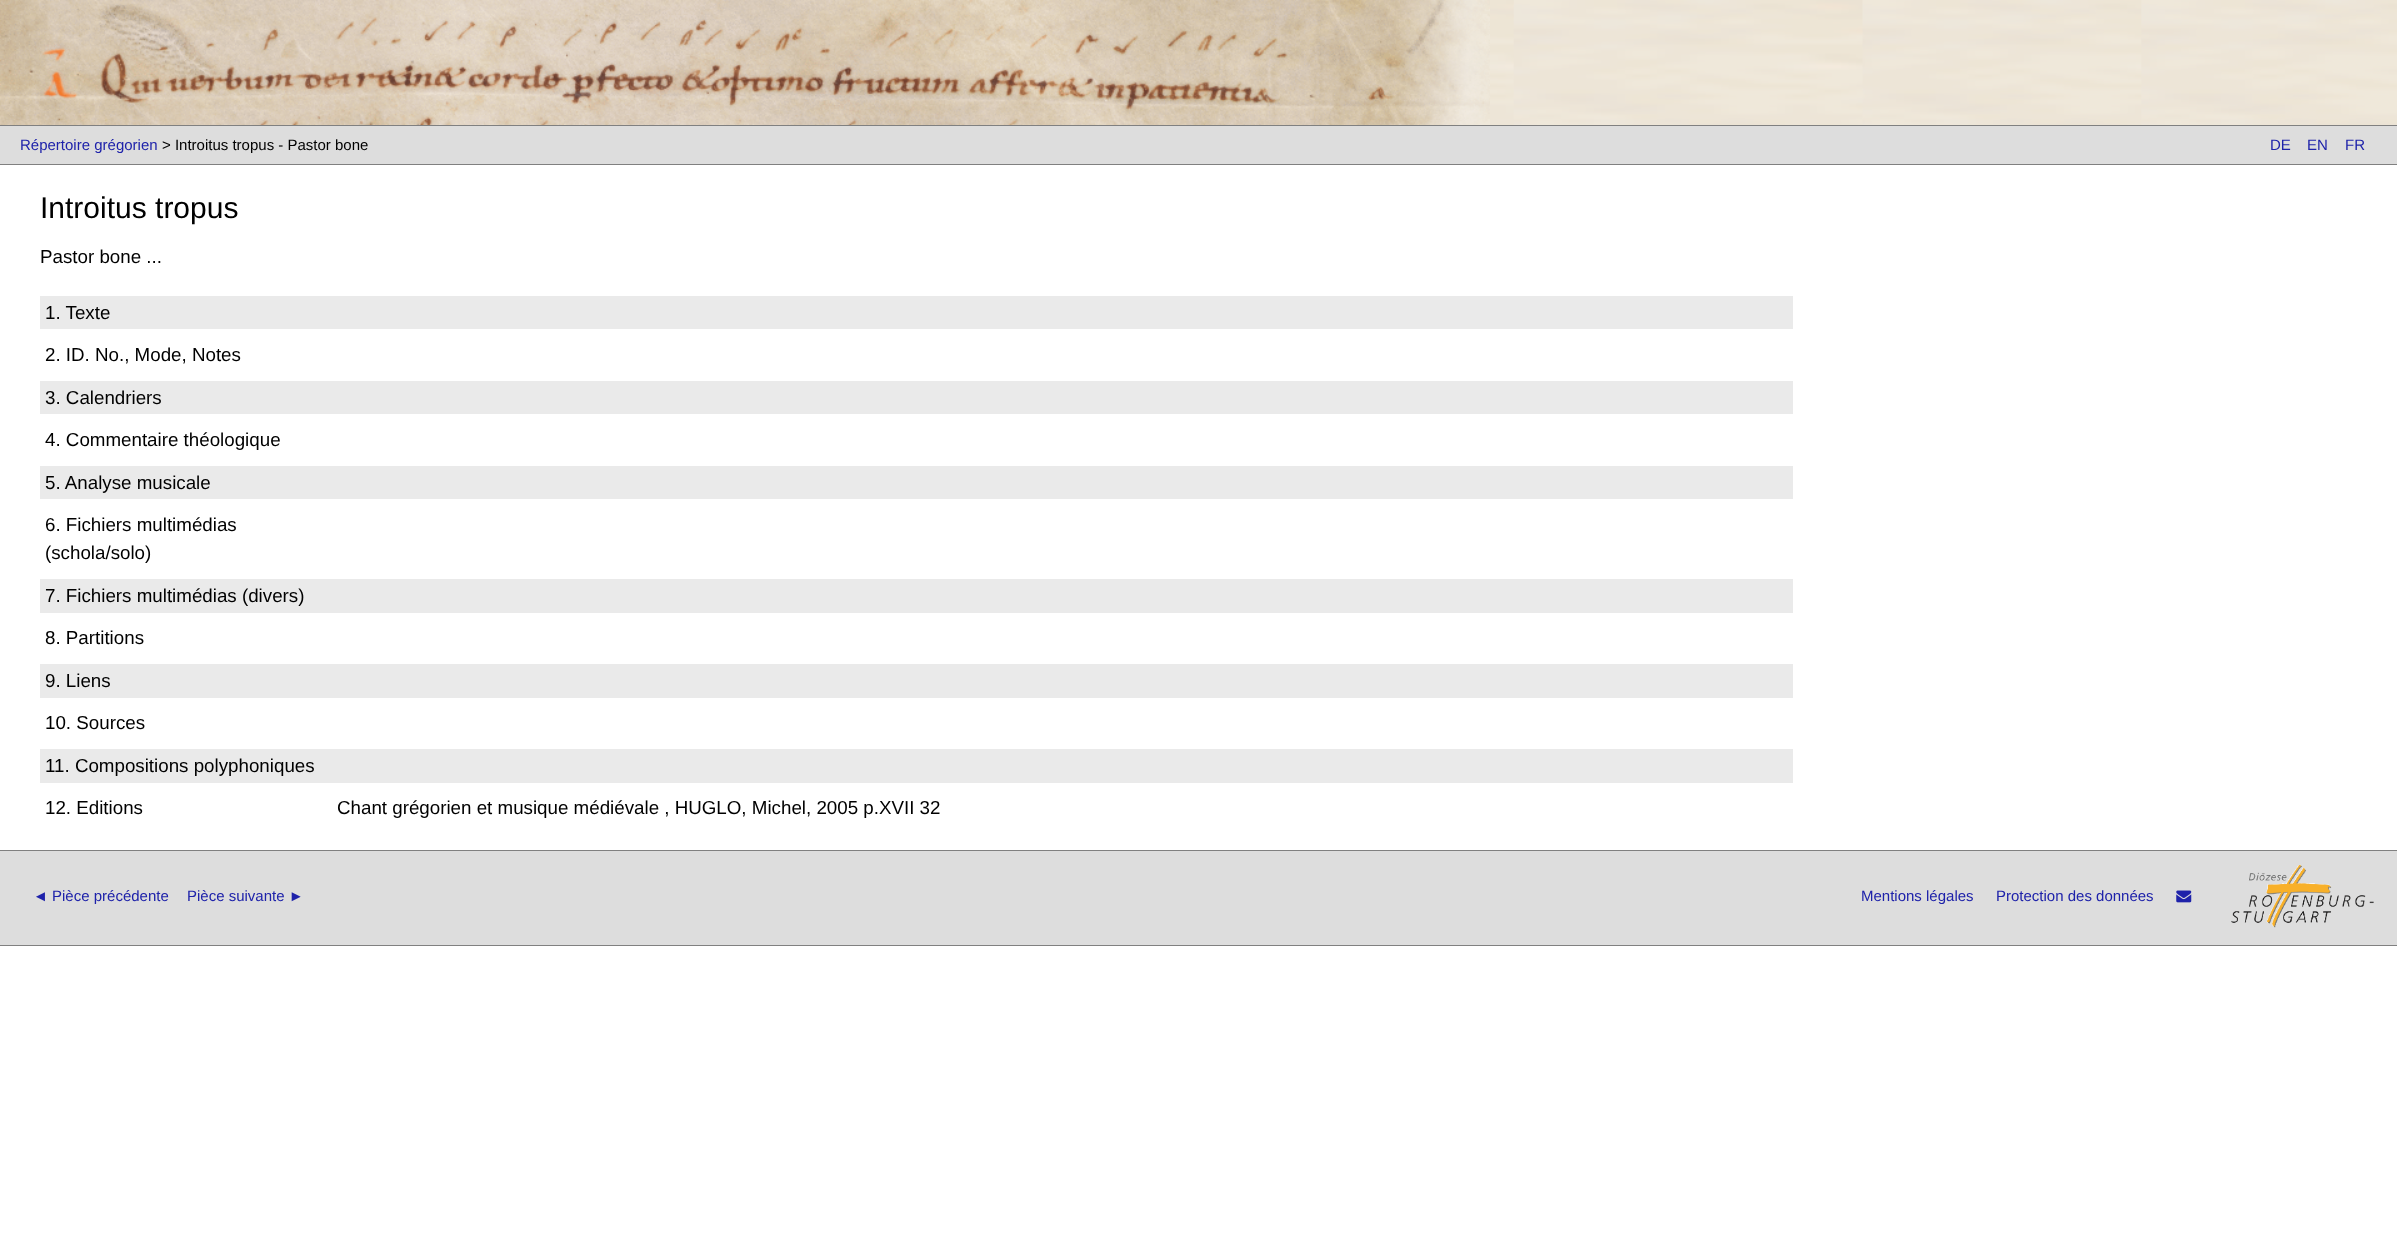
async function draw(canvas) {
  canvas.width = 2397;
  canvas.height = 1236;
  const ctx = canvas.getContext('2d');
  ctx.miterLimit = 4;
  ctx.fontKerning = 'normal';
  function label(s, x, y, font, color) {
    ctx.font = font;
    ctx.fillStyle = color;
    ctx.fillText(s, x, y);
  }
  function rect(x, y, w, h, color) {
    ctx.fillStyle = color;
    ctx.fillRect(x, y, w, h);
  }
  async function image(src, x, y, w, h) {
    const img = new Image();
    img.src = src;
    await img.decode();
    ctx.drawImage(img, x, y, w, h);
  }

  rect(0, 0, 2397, 1236, '#fff');
  await image('assets/img1.png', 1490, 0, 907, 125);
  await image('assets/img2.png', 0, 0, 1490, 125);
  rect(0, 126, 2397, 38, '#ddd');
  rect(0, 125, 2397, 1, '#808080');
  rect(0, 164, 2397, 1, '#808080');
  label('Répertoire grégorien', 20, 150, '15px Liberation Sans', '#1e22aa');
  label('> Introitus tropus - Pastor bone', 162, 150, '15px Liberation Sans', '#000');
  label('DE', 2270, 150, '15px Liberation Sans', '#1e22aa');
  label('EN', 2307, 150, '15px Liberation Sans', '#1e22aa');
  label('FR', 2345, 150, '15px Liberation Sans', '#1e22aa');
  label('Introitus tropus', 40, 218, '30px Liberation Sans', '#000');
  label('Pastor bone ...', 40, 263, '18.75px Liberation Sans', '#000');
  rect(40, 296, 1753, 33, '#eaeaea');
  label('1. Texte', 45, 319, '18.75px Liberation Sans', '#000');
  label('2. ID. No., Mode, Notes', 45, 361, '18.75px Liberation Sans', '#000');
  rect(40, 381, 1753, 33, '#eaeaea');
  label('3. Calendriers', 45, 404, '18.75px Liberation Sans', '#000');
  label('4. Commentaire théologique', 45, 446, '18.75px Liberation Sans', '#000');
  rect(40, 466, 1753, 33, '#eaeaea');
  label('5. Analyse musicale', 45, 489, '18.75px Liberation Sans', '#000');
  label('6. Fichiers multimédias', 45, 531, '18.75px Liberation Sans', '#000');
  label('(schola/solo)', 45, 559, '18.75px Liberation Sans', '#000');
  rect(40, 579, 1753, 34, '#eaeaea');
  label('7. Fichiers multimédias (divers)', 45, 602, '18.75px Liberation Sans', '#000');
  label('8. Partitions', 45, 644, '18.75px Liberation Sans', '#000');
  rect(40, 664, 1753, 34, '#eaeaea');
  label('9. Liens', 45, 687, '18.75px Liberation Sans', '#000');
  label('10. Sources', 45, 729, '18.75px Liberation Sans', '#000');
  rect(40, 749, 1753, 34, '#eaeaea');
  label('11. Compositions polyphoniques', 45, 772, '18.75px Liberation Sans', '#000');
  label('12. Editions', 45, 814, '18.75px Liberation Sans', '#000');
  label('Chant grégorien et musique médiévale , HUGLO, Michel, 2005 p.XVII 32', 337, 814, '18.75px Liberation Sans', '#000');
  rect(0, 851, 2397, 94, '#ddd');
  rect(0, 850, 2397, 1, '#808080');
  rect(0, 945, 2397, 1, '#808080');
  label('◄ Pièce précédente', 33, 901, '15px Liberation Sans', '#1e22aa');
  label('Pièce suivante ►', 187, 901, '15px Liberation Sans', '#1e22aa');
  label('Mentions légales', 1861, 901, '15px Liberation Sans', '#1e22aa');
  label('Protection des données', 1996, 901, '15px Liberation Sans', '#1e22aa');
  await image('assets/img3.png', 2176, 890, 16, 13);
  await image('assets/img4.png', 2231, 865, 143, 63);
}

draw(document.querySelector('canvas'));
